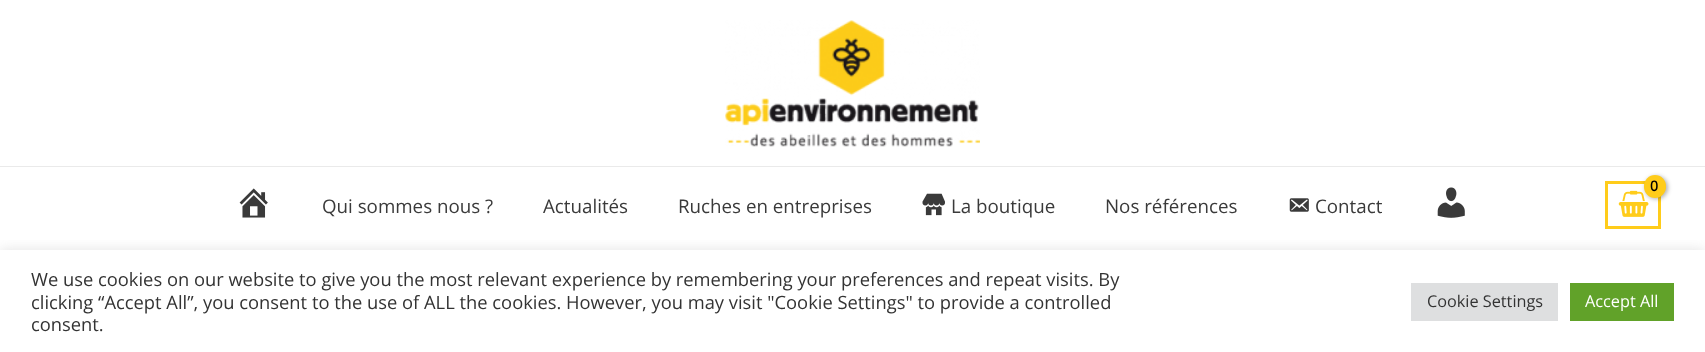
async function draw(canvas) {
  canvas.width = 1705;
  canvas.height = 352;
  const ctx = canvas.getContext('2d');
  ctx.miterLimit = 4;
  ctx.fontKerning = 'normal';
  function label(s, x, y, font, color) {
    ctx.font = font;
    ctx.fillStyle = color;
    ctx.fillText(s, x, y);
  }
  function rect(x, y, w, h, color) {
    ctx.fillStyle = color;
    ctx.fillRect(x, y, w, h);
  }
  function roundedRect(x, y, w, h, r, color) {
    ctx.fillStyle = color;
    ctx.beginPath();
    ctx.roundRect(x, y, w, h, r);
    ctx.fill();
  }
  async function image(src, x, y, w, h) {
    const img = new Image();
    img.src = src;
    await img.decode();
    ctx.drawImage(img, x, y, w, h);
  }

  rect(0, 0, 1705, 352, '#fff');
  rect(0, 166, 1705, 1, '#eaeaea');
  await image('assets/img1.png', 725, 20, 255, 127);
  ctx.strokeStyle = '#ffcc1a';
  ctx.lineWidth = 3;
  ctx.strokeRect(1606.5, 182.5, 53, 45);
  await image('assets/img2.png', 1618, 190, 31, 27);
  ctx.fillStyle = '#0000004d';
  ctx.filter = 'blur(2px)';
  ctx.beginPath();
  ctx.roundRect(1645, 176, 23, 23, 11.5);
  ctx.fill();
  ctx.filter = 'none';
  roundedRect(1644, 175, 22, 23, 11, '#ffcc1a');
  ctx.letterSpacing = '-1px';
  label('0', 1650, 191, 'bold 14px Open Sans', '#000');
  await image('assets/img3.png', 239, 188, 29, 30);
  ctx.letterSpacing = '0px';
  label('Qui sommes nous ?', 322, 213, '18.75px Open Sans', '#3a3a3a');
  label('Actualités', 543, 213, '18.75px Open Sans', '#3a3a3a');
  label('Ruches en entreprises', 678, 213, '18.75px Open Sans', '#3a3a3a');
  await image('assets/img4.png', 922, 193, 23, 23);
  label('La boutique', 951, 213, '18.75px Open Sans', '#3a3a3a');
  label('Nos références', 1105, 213, '18.75px Open Sans', '#3a3a3a');
  await image('assets/img5.png', 1289, 198, 20, 14);
  label('Contact', 1315, 213, '18.75px Open Sans', '#3a3a3a');
  await image('assets/img6.png', 1437, 187, 28, 31);
  ctx.save();
  ctx.beginPath();
  ctx.rect(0, 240, 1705, 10);
  ctx.clip();
  ctx.fillStyle = '#acabab4d';
  ctx.filter = 'blur(6px)';
  ctx.beginPath();
  ctx.rect(0, 249, 1705, 102);
  ctx.fill();
  ctx.filter = 'none';
  ctx.restore();
  label('We use cookies on our website to give you the most relevant experience by remembering your preferences and repeat visits. By', 31, 286, '18.33px Open Sans', '#333');
  label('clicking “Accept All”, you consent to the use of ALL the cookies. However, you may visit "Cookie Settings" to provide a controlled', 31, 309, '18.33px Open Sans', '#333');
  label('consent.', 31, 331, '18.33px Open Sans', '#333');
  rect(1411, 283, 147, 38, '#dedfe0');
  label('Cookie Settings', 1427, 307, '16.25px Open Sans', '#333');
  rect(1570, 283, 104, 38, '#61a229');
  label('Accept All', 1585, 307, '16.25px Open Sans', '#fff');
}

draw(document.querySelector('canvas'));
